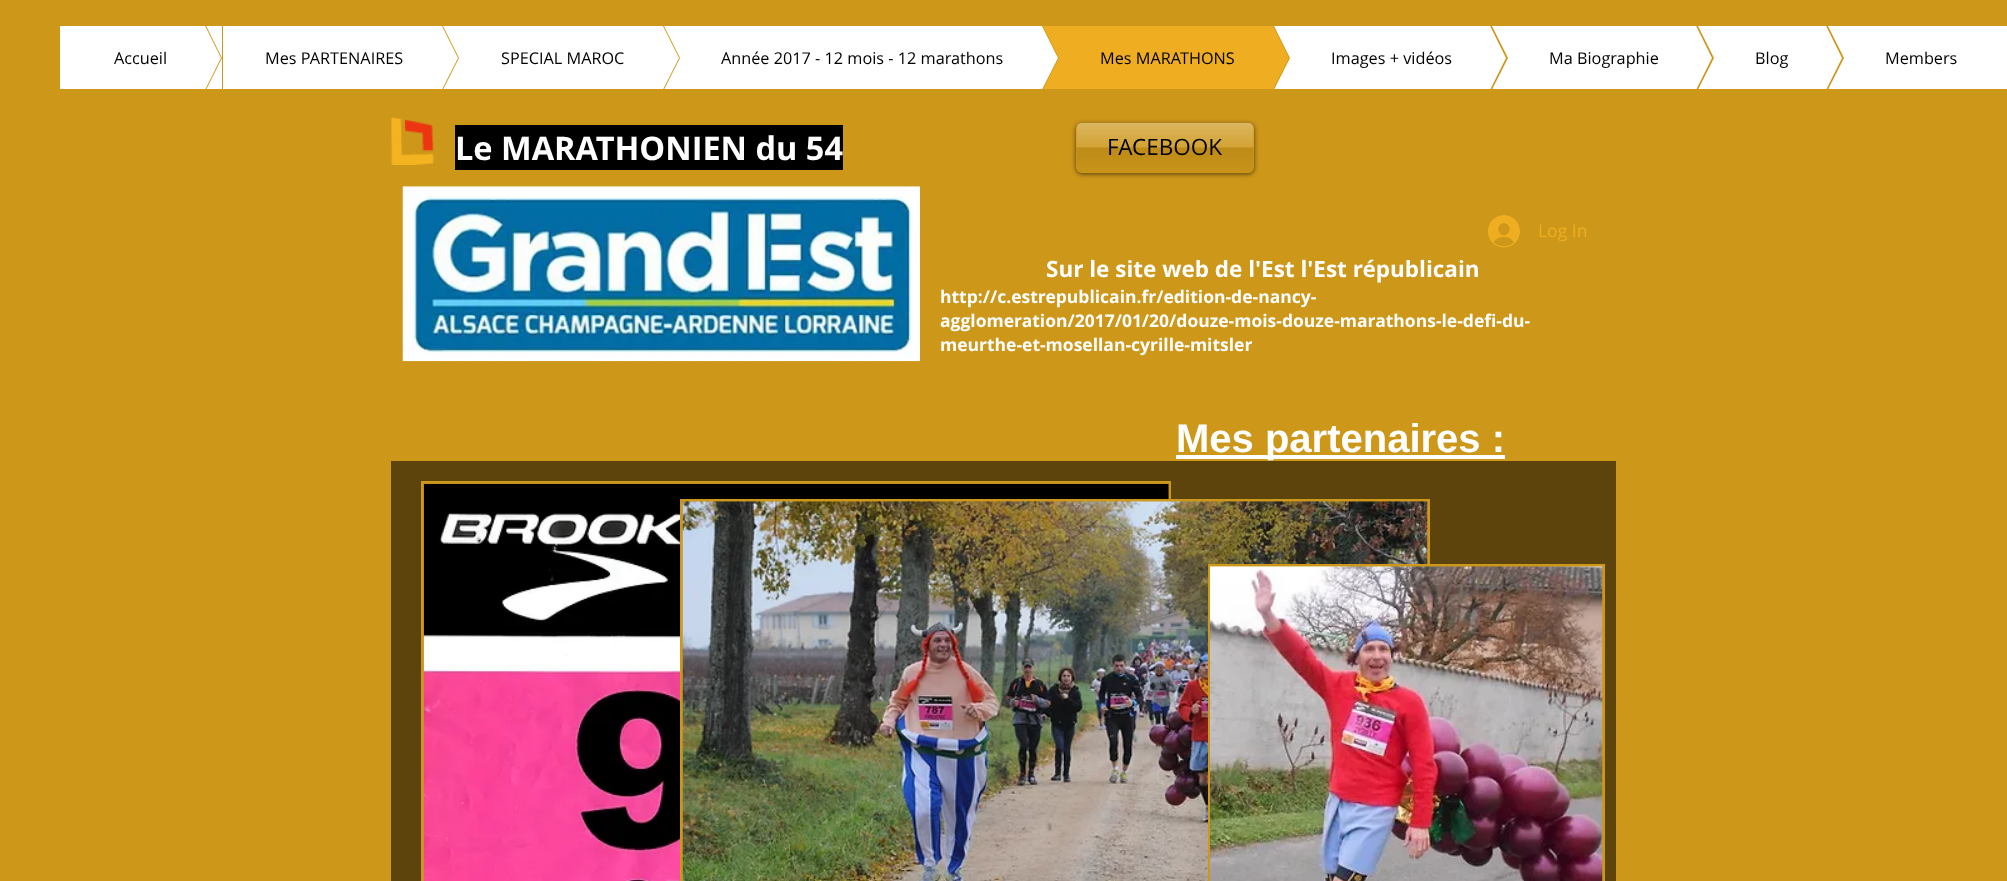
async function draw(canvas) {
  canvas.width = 2007;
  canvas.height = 881;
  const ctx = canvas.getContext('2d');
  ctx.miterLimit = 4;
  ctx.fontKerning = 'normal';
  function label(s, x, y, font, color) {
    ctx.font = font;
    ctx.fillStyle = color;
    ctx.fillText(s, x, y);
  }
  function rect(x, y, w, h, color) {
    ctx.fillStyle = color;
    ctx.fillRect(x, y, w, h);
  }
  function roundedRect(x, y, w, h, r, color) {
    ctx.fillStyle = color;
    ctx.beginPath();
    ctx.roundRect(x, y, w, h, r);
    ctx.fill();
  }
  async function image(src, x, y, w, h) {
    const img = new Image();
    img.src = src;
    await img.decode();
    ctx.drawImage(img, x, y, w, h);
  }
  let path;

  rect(0, 0, 2007, 881, '#cd971a');
  rect(60, 26, 74, 63, '#fff');
  ctx.save();
  ctx.beginPath();
  ctx.rect(134, 26, 87, 63);
  ctx.clip();
  path = new Path2D('M221 58H134V-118Z');
  ctx.fill(path);
  path = new Path2D('M134 58H221L134 232Z');
  ctx.fill(path);
  ctx.restore();
  label('Accueil', 114, 64, '16.25px Open Sans', '#000');
  ctx.save();
  ctx.beginPath();
  ctx.rect(135, 26, 88, 63);
  ctx.clip();
  ctx.fillStyle = '#fff';
  path = new Path2D('M135-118H222V58ZM222 232H135L222 58Z');
  ctx.fill(path);
  ctx.restore();
  rect(223, 26, 147, 63, '#fff');
  ctx.save();
  ctx.beginPath();
  ctx.rect(370, 26, 88, 63);
  ctx.clip();
  path = new Path2D('M458 58H370V-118Z');
  ctx.fill(path);
  path = new Path2D('M370 58H458L370 232Z');
  ctx.fill(path);
  ctx.restore();
  label('Mes PARTENAIRES', 265, 64, '16.25px Open Sans', '#000');
  ctx.save();
  ctx.beginPath();
  ctx.rect(371, 26, 88, 63);
  ctx.clip();
  ctx.fillStyle = '#fff';
  path = new Path2D('M371-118H459V58ZM459 232H371L459 58Z');
  ctx.fill(path);
  ctx.restore();
  rect(459, 26, 132, 63, '#fff');
  ctx.save();
  ctx.beginPath();
  ctx.rect(591, 26, 88, 63);
  ctx.clip();
  path = new Path2D('M679 58H591V-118Z');
  ctx.fill(path);
  path = new Path2D('M591 58H679L591 232Z');
  ctx.fill(path);
  ctx.restore();
  label('SPECIAL MAROC', 501, 64, '16.25px Open Sans', '#000');
  ctx.save();
  ctx.beginPath();
  ctx.rect(593, 26, 87, 63);
  ctx.clip();
  ctx.fillStyle = '#fff';
  path = new Path2D('M592-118H680V58ZM680 232H592L680 58Z');
  ctx.fill(path);
  ctx.restore();
  rect(680, 26, 290, 63, '#fff');
  ctx.save();
  ctx.beginPath();
  ctx.rect(970, 26, 88, 63);
  ctx.clip();
  path = new Path2D('M1058 58H970V-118Z');
  ctx.fill(path);
  path = new Path2D('M970 58H1058L970 232Z');
  ctx.fill(path);
  ctx.restore();
  label('Année 2017 - 12 mois - 12 marathons', 721, 64, '16.25px Open Sans', '#000');
  ctx.save();
  ctx.beginPath();
  ctx.rect(971, 26, 88, 63);
  ctx.clip();
  ctx.fillStyle = '#efae21';
  path = new Path2D('M971-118H1059V58ZM1059 232H971L1059 58Z');
  ctx.fill(path);
  ctx.restore();
  rect(1059, 26, 142, 63, '#efae21');
  ctx.save();
  ctx.beginPath();
  ctx.rect(1201, 26, 88, 63);
  ctx.clip();
  path = new Path2D('M1289 58H1201V-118Z');
  ctx.fill(path);
  path = new Path2D('M1201 58H1289L1201 232Z');
  ctx.fill(path);
  ctx.restore();
  label('Mes MARATHONS', 1100, 64, '16.25px Open Sans', '#000');
  ctx.save();
  ctx.beginPath();
  ctx.rect(1203, 26, 87, 63);
  ctx.clip();
  ctx.fillStyle = '#fff';
  path = new Path2D('M1202-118H1290V58ZM1290 232H1202L1290 58Z');
  ctx.fill(path);
  ctx.restore();
  rect(1290, 26, 129, 63, '#fff');
  ctx.save();
  ctx.beginPath();
  ctx.rect(1419, 26, 87, 63);
  ctx.clip();
  path = new Path2D('M1506 58H1419V-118Z');
  ctx.fill(path);
  path = new Path2D('M1419 58H1506L1419 232Z');
  ctx.fill(path);
  ctx.restore();
  label('Images + vidéos', 1331, 64, '16.25px Open Sans', '#000');
  ctx.save();
  ctx.beginPath();
  ctx.rect(1420, 26, 88, 63);
  ctx.clip();
  ctx.fillStyle = '#fff';
  path = new Path2D('M1420-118H1508V58ZM1508 232H1420L1508 58Z');
  ctx.fill(path);
  ctx.restore();
  rect(1508, 26, 117, 63, '#fff');
  ctx.save();
  ctx.beginPath();
  ctx.rect(1625, 26, 88, 63);
  ctx.clip();
  path = new Path2D('M1712 58H1625V-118Z');
  ctx.fill(path);
  path = new Path2D('M1625 58H1712L1625 232Z');
  ctx.fill(path);
  ctx.restore();
  label('Ma Biographie', 1549, 64, '16.25px Open Sans', '#000');
  ctx.save();
  ctx.beginPath();
  ctx.rect(1626, 26, 88, 63);
  ctx.clip();
  ctx.fillStyle = '#fff';
  path = new Path2D('M1626-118H1714V58ZM1714 232H1626L1714 58Z');
  ctx.fill(path);
  ctx.restore();
  rect(1714, 26, 41, 63, '#fff');
  ctx.save();
  ctx.beginPath();
  ctx.rect(1755, 26, 88, 63);
  ctx.clip();
  path = new Path2D('M1842 58H1755V-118Z');
  ctx.fill(path);
  path = new Path2D('M1755 58H1842L1755 232Z');
  ctx.fill(path);
  ctx.restore();
  label('Blog', 1755, 64, '16.25px Open Sans', '#000');
  ctx.save();
  ctx.beginPath();
  ctx.rect(1756, 26, 88, 63);
  ctx.clip();
  ctx.fillStyle = '#fff';
  path = new Path2D('M1756-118H1844V58ZM1844 232H1756L1844 58Z');
  ctx.fill(path);
  ctx.restore();
  rect(1844, 26, 163, 63, '#fff');
  label('Members', 1885, 64, '16.25px Open Sans', '#000');
  await image('assets/img1.png', 391, 117, 43, 48);
  rect(455, 125, 388, 45, '#000');
  label('Le MARATHONIEN du 54', 455, 160, 'bold 32.5px Open Sans', '#fff');
  ctx.fillStyle = '#00000099';
  ctx.filter = 'blur(2.5px)';
  ctx.beginPath();
  ctx.roundRect(1076, 124, 178, 50, 6);
  ctx.fill();
  ctx.filter = 'none';
  roundedRect(1076, 123, 178, 50, 6, '#cd971a');
  await image('assets/img2.png', 1076, 122, 178, 50);
  label('FACEBOOK', 1107, 155, '22.5px Open Sans', '#000');
  await image('assets/img3.png', 402, 186, 518, 176);
  await image('assets/img4.png', 1488, 215, 32, 33);
  label('Log In', 1538, 237, '17.5px Open Sans', '#efae21');
  label('Sur le site web de l\'Est l\'Est républicain', 1046, 277, 'bold 22.5px Open Sans', '#fff');
  label('http://c.estrepublicain.fr/edition-de-nancy-', 940, 303, 'bold 17.5px Open Sans', '#fff');
  label('agglomeration/2017/01/20/douze-mois-douze-marathons-le-defi-du-', 940, 327, 'bold 17.5px Open Sans', '#fff');
  label('meurthe-et-mosellan-cyrille-mitsler', 940, 351, 'bold 17.5px Open Sans', '#fff');
  rect(1176, 455, 329, 4, '#fff');
  label('Mes partenaires :', 1176, 452, 'bold 40px Liberation Sans', '#fff');
  rect(391, 461, 1225, 420, '#5d440c');
  rect(421, 481, 750, 400, '#cd971a');
  await image('assets/img5.png', 423, 483, 746, 398);
  rect(680, 499, 750, 382, '#cd971a');
  await image('assets/img6.png', 682, 501, 746, 380);
  rect(1208, 564, 397, 317, '#cd971a');
  await image('assets/img7.png', 1210, 566, 393, 315);
}

draw(document.querySelector('canvas'));
